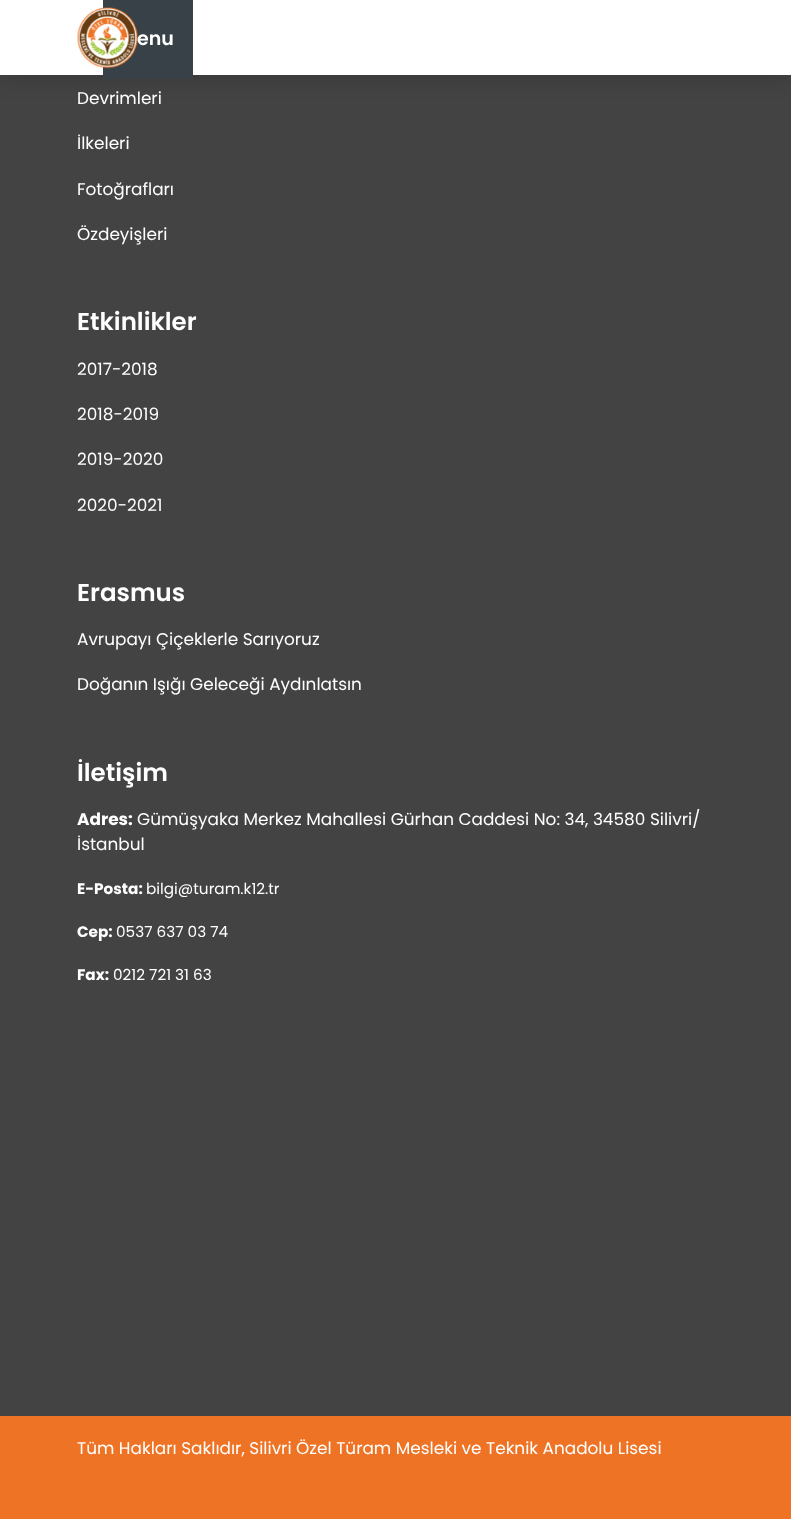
async function draw(canvas) {
  canvas.width = 791;
  canvas.height = 1519;
  const ctx = canvas.getContext('2d');
  ctx.miterLimit = 4;
  ctx.fontKerning = 'normal';
  function label(s, x, y, font, color) {
    ctx.font = font;
    ctx.fillStyle = color;
    ctx.fillText(s, x, y);
  }
  function rect(x, y, w, h, color) {
    ctx.fillStyle = color;
    ctx.fillRect(x, y, w, h);
  }
  async function image(src, x, y, w, h) {
    const img = new Image();
    img.src = src;
    await img.decode();
    ctx.drawImage(img, x, y, w, h);
  }

  rect(0, 0, 791, 1519, '#ee7324');
  rect(0, 75, 791, 1341, '#434343');
  ctx.fillStyle = '#00000033';
  ctx.filter = 'blur(12.5px)';
  ctx.beginPath();
  ctx.rect(0, 0, 791, 75);
  ctx.fill();
  ctx.filter = 'none';
  rect(0, 0, 791, 75, '#fff');
  rect(103, 0, 90, 79, '#374147');
  await image('assets/img1.png', 77, 7, 61, 62);
  label('enu', 137, 45, '600 19px Poppins', '#fff');
  label('Devrimleri', 77, 104, '16.9px Poppins', '#fff');
  label('İlkeleri', 77, 149, '16.9px Poppins', '#fff');
  label('Fotoğrafları', 77, 195, '16.9px Poppins', '#fff');
  label('Özdeyişleri', 77, 240, '16.9px Poppins', '#fff');
  label('Etkinlikler', 77, 330, '600 24.5px Poppins', '#fff');
  label('2017-2018', 77, 375, '16.9px Poppins', '#fff');
  label('2018-2019', 77, 420, '16.9px Poppins', '#fff');
  label('2019-2020', 77, 465, '16.9px Poppins', '#fff');
  label('2020-2021', 77, 511, '16.9px Poppins', '#fff');
  label('Erasmus', 77, 601, '600 24.5px Poppins', '#fff');
  label('Avrupayı Çiçeklerle Sarıyoruz', 77, 645, '16.9px Poppins', '#fff');
  label('Doğanın Işığı Geleceği Aydınlatsın', 77, 690, '16.9px Poppins', '#fff');
  label('İletişim', 77, 781, '600 24.5px Poppins', '#fff');
  label('Adres:', 77, 825, 'bold 16.9px Poppins', '#fff');
  label('Gümüşyaka Merkez Mahallesi Gürhan Caddesi No: 34, 34580 Silivri/', 137, 825, '16.9px Poppins', '#fff');
  label('İstanbul', 77, 850, '16.9px Poppins', '#fff');
  label('E-Posta:', 77, 894, 'bold 15.25px Poppins', '#fff');
  label('bilgi@turam.k12.tr', 146, 894, '15.25px Poppins', '#fff');
  label('Cep:', 77, 937, 'bold 15.25px Poppins', '#fff');
  label('0537 637 03 74', 116, 937, '15.25px Poppins', '#fff');
  label('Fax:', 77, 980, 'bold 15.25px Poppins', '#fff');
  label('0212 721 31 63', 113, 980, '15.25px Poppins', '#fff');
  label('Tüm Hakları Saklıdır, Silivri Özel Türam Mesleki ve Teknik Anadolu Lisesi', 77, 1454, '16.9px Poppins', '#fff');
}

draw(document.querySelector('canvas'));
